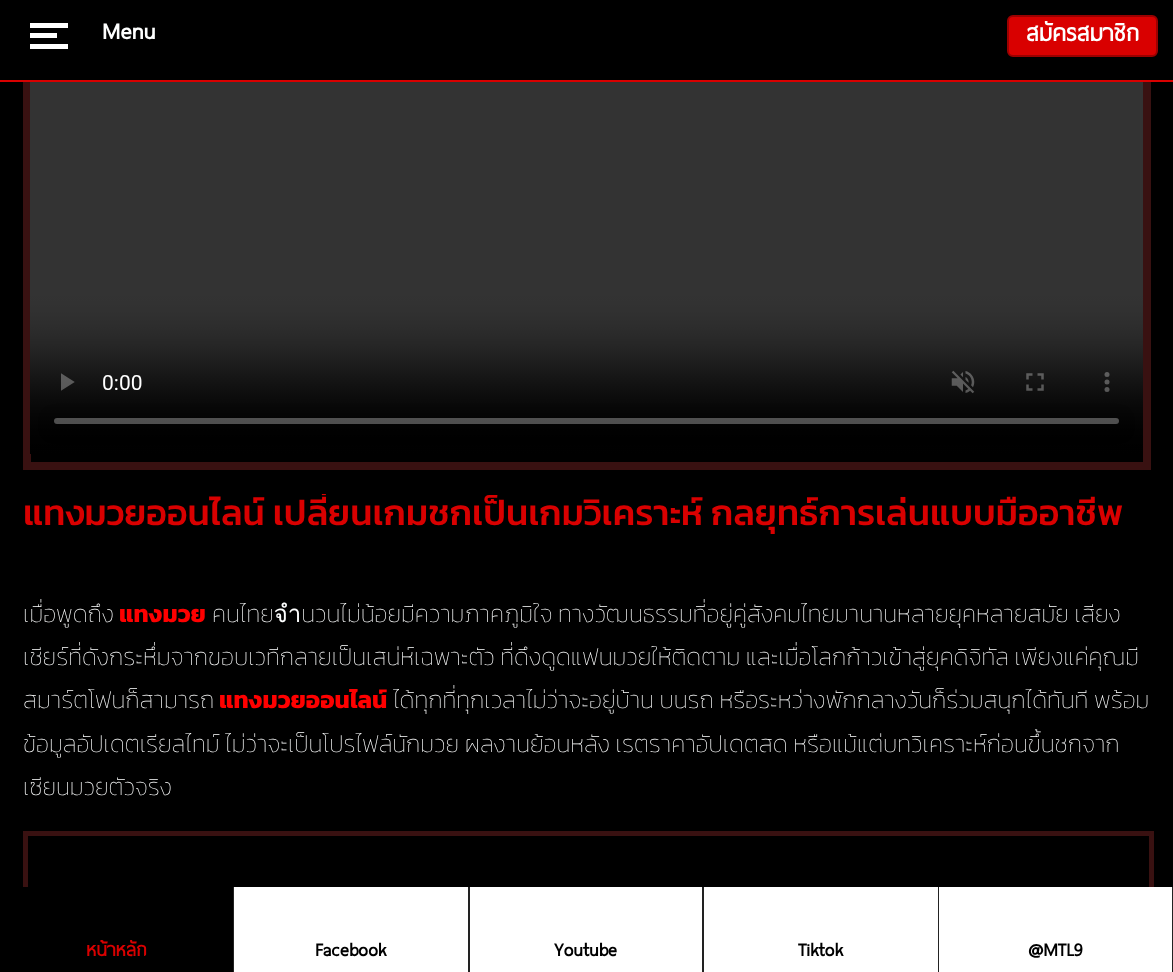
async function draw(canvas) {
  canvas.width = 1173;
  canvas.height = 972;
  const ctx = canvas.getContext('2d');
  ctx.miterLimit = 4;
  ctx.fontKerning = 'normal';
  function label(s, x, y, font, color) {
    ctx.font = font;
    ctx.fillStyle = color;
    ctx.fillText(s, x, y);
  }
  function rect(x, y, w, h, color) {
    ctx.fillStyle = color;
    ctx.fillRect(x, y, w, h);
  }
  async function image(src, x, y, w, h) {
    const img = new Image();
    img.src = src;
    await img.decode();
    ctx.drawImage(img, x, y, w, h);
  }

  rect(0, 0, 1173, 972, '#000');
  ctx.strokeStyle = '#391111';
  ctx.lineWidth = 8;
  ctx.strokeRect(27, -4, 1120, 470);
  rect(23, 0, 1128, 80, '#000');
  rect(0, 80, 1173, 2, '#d90000');
  rect(30, 23, 38, 5, '#fff');
  rect(30, 33, 27, 5, '#fff');
  rect(30, 44, 38, 5, '#fff');
  label('Menu', 102, 39, 'bold 30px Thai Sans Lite', '#feffff');
  ctx.fillStyle = '#d90000';
  ctx.beginPath();
  ctx.roundRect(1008, 16, 149, 40, 5);
  ctx.fill();
  ctx.strokeStyle = '#9b0000';
  ctx.lineWidth = 2;
  ctx.stroke();
  label('สมัครสมาชิก', 1026, 41, 'bold 30px Thai Sans Lite', '#feffff');
  await image('assets/img1.png', 30, 82, 1113, 372);
  ctx.save();
  ctx.beginPath();
  ctx.rect(23, 494, 1128, 315);
  ctx.clip();
  label('แทงมวยออนไลน์ เปลี่ยนเกมชกเป็นเกมวิเคราะห์ กลยุทธ์การเล่นแบบมืออาชีพ', 23, 525, '500 36px Kanit', '#d90000');
  label('เมื่อพูดถึง', 23, 622, '200 24px Kanit', '#feffff');
  ctx.restore();
  label('แทงมวย', 119, 622, 'bold 24px Kanit', '#f00');
  label('คนไทยจำนวนไม่น้อยมีความภาคภูมิใจ ทางวัฒนธรรมที่อยู่คู่สังคมไทยมานานหลายยุคหลายสมัย เสียง', 212, 622, '200 24px Kanit', '#feffff');
  ctx.save();
  ctx.beginPath();
  ctx.rect(23, 494, 1128, 315);
  ctx.clip();
  label('เชียร์ที่ดังกระหึ่มจากขอบเวทีกลายเป็นเสน่ห์เฉพาะตัว ที่ดึงดูดแฟนมวยให้ติดตาม และเมื่อโลกก้าวเข้าสู่ยุคดิจิทัล เพียงแค่คุณมี', 23, 665, '200 24px Kanit', '#feffff');
  ctx.restore();
  label('สมาร์ตโฟนก็สามารถ', 23, 708, '200 24px Kanit', '#feffff');
  label('แทงมวยออนไลน์', 219, 708, 'bold 24px Kanit', '#f00');
  label('ได้ทุกที่ทุกเวลาไม่ว่าจะอยู่บ้าน บนรถ หรือระหว่างพักกลางวันก็ร่วมสนุกได้ทันที พร้อม', 393, 708, '200 24px Kanit', '#feffff');
  ctx.save();
  ctx.beginPath();
  ctx.rect(23, 494, 1128, 315);
  ctx.clip();
  label('ข้อมูลอัปเดตเรียลไทม์ ไม่ว่าจะเป็นโปรไฟล์นักมวย ผลงานย้อนหลัง เรตราคาอัปเดตสด หรือแม้แต่บทวิเคราะห์ก่อนขึ้นชกจาก', 23, 752, '200 24px Kanit', '#feffff');
  label('เซียนมวยตัวจริง', 23, 795, '200 24px Kanit', '#feffff');
  ctx.restore();
  ctx.strokeStyle = '#391111';
  ctx.lineWidth = 5;
  ctx.strokeRect(25.5, 833.5, 1126, 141);
  rect(23, 887, 5, 85, '#000');
  rect(233, 887, 1, 85, '#222');
  label('หน้าหลัก', 86, 956, 'bold 24px Thai Sans Lite', '#d90000');
  rect(234, 887, 234, 85, '#fff');
  rect(468, 887, 2, 85, '#222');
  label('Facebook', 315, 956, 'bold 24px Thai Sans Lite', '#000');
  rect(470, 887, 232, 85, '#fff');
  rect(702, 887, 2, 85, '#222');
  label('Youtube', 554, 956, 'bold 24px Thai Sans Lite', '#000');
  rect(704, 887, 234, 85, '#fff');
  rect(938, 887, 1, 85, '#222');
  label('Tiktok', 798, 956, 'bold 24px Thai Sans Lite', '#000');
  rect(939, 887, 233, 85, '#fff');
  rect(1172, 887, 1, 85, '#222');
  label('@MTL9', 1028, 956, 'bold 24px Thai Sans Lite', '#000');
}

draw(document.querySelector('canvas'));
